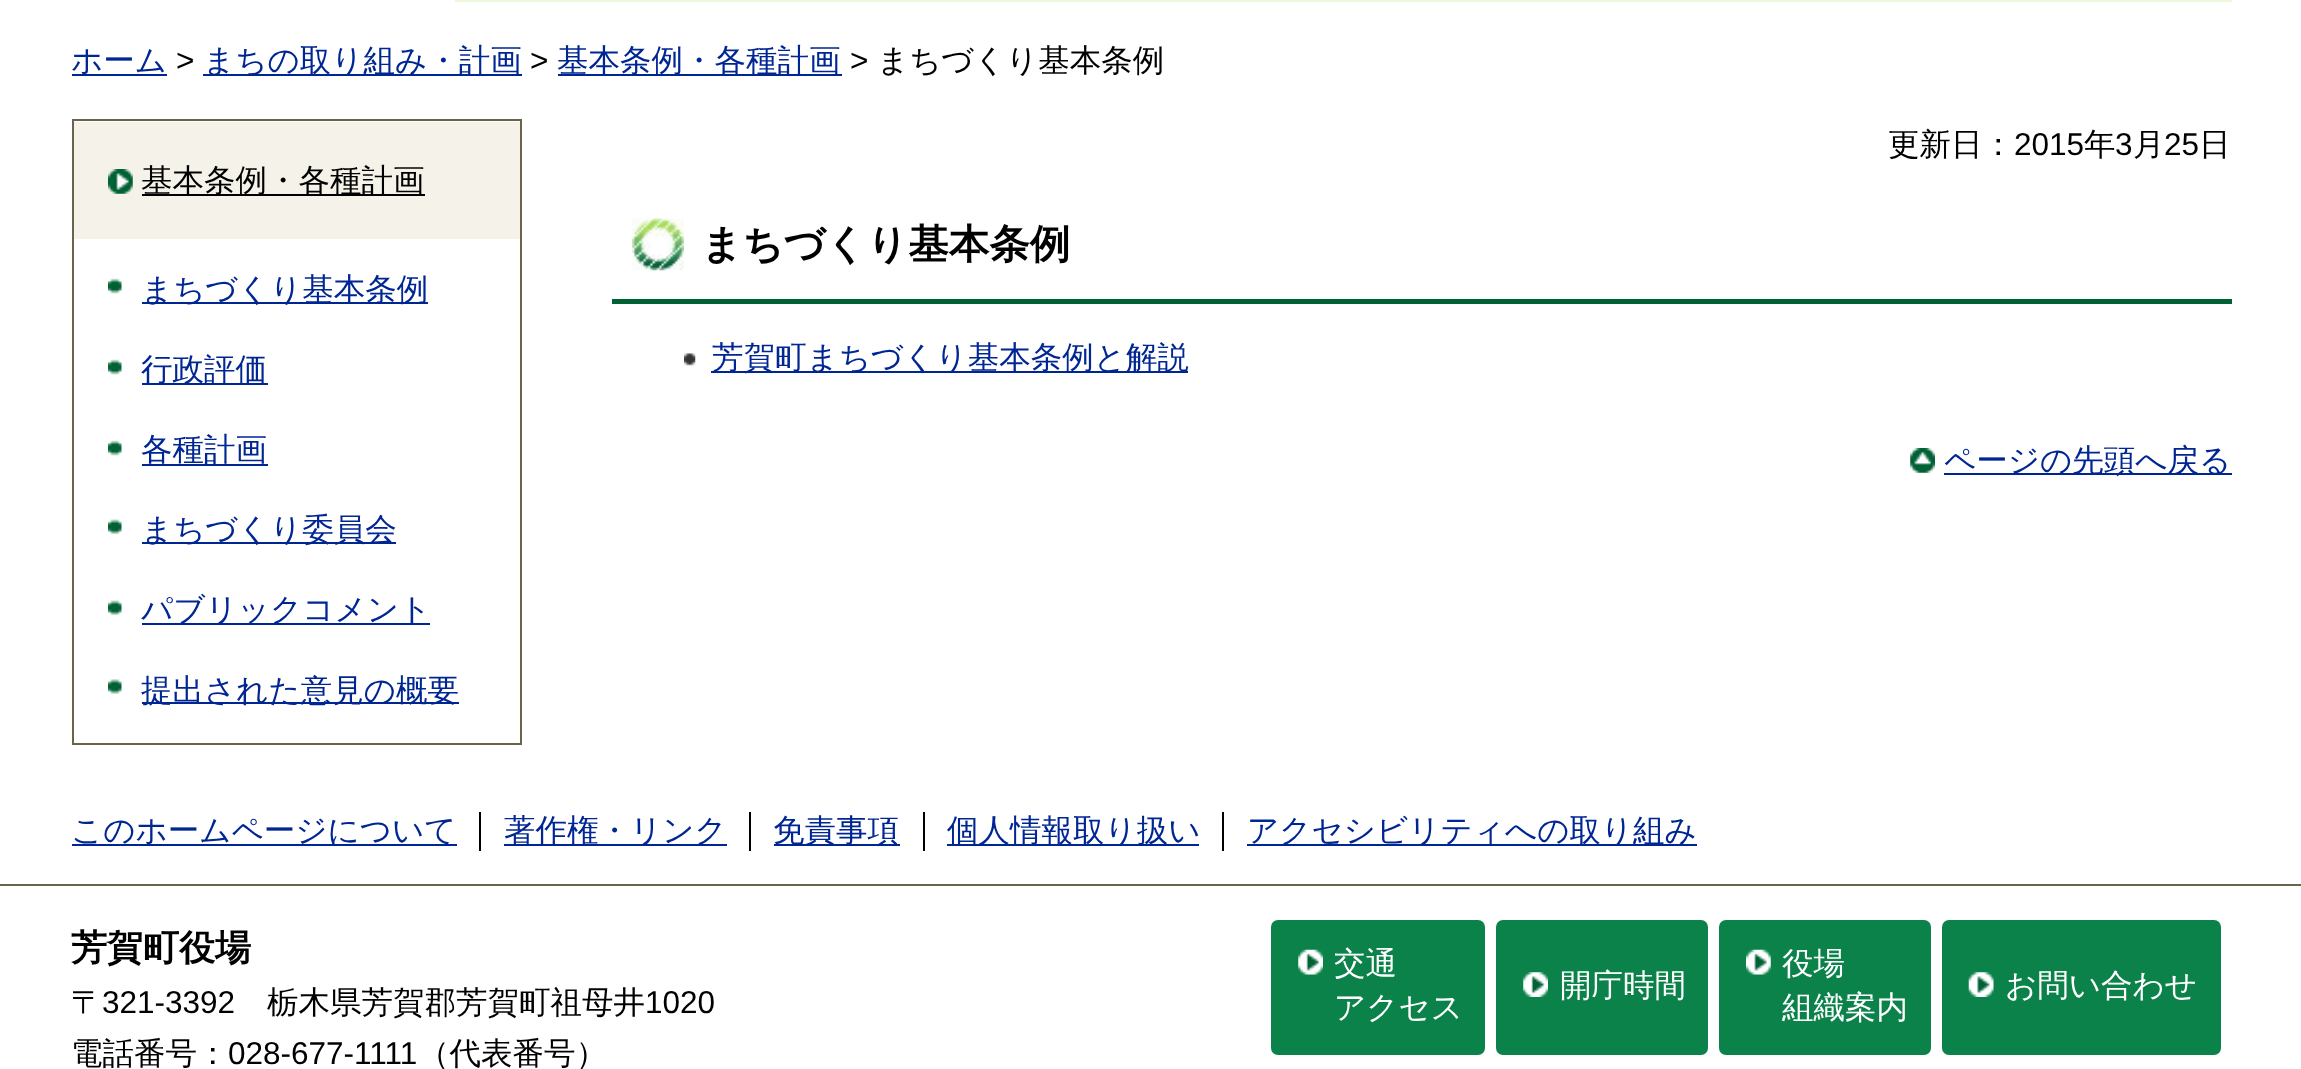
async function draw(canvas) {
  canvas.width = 2301;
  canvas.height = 1069;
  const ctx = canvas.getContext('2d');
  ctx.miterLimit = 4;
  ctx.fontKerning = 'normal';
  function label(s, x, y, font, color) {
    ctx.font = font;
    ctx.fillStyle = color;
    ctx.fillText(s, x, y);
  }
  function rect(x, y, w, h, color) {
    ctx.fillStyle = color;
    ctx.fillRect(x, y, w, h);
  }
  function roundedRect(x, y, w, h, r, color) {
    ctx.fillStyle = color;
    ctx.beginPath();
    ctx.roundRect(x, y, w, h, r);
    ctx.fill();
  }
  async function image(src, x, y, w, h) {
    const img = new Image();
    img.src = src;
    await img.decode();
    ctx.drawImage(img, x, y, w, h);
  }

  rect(0, 0, 2301, 1069, '#fff');
  rect(455, 0, 1777, 2, '#ecf8dc');
  rect(72, 74, 95, 2, '#002693');
  label('ホーム', 71, 71, '500 31.5px WenQuanYi Zen Hei', '#002693');
  label('>', 176, 71, '31.5px Liberation Sans', '#000');
  rect(203, 74, 319, 2, '#002693');
  label('まちの取り組み・計画', 203, 71, '500 31.5px WenQuanYi Zen Hei', '#002693');
  label('>', 530, 71, '31.5px Liberation Sans', '#000');
  rect(558, 74, 284, 2, '#002693');
  label('基本条例・各種計画', 557, 71, '500 31.5px WenQuanYi Zen Hei', '#002693');
  label('>', 850, 71, '31.5px Liberation Sans', '#000');
  label('まちづくり基本条例', 877, 71, '500 31.5px WenQuanYi Zen Hei', '#000');
  ctx.strokeStyle = '#69644b';
  ctx.lineWidth = 2;
  ctx.strokeRect(73, 120, 448, 624);
  rect(74, 122, 446, 117, '#f5f3e9');
  await image('assets/img1.png', 108, 169, 25, 25);
  rect(142, 194, 283, 2, '#000');
  label('基本条例・各種計画', 141, 191, '500 31.5px WenQuanYi Zen Hei', '#000');
  await image('assets/img2.png', 108, 278, 14, 16);
  rect(142, 302, 286, 2, '#002693');
  label('まちづくり基本条例', 141, 300, '500 31.5px WenQuanYi Zen Hei', '#002693');
  await image('assets/img2.png', 108, 359, 14, 16);
  rect(142, 383, 126, 2, '#002693');
  label('行政評価', 141, 380, '500 31.5px WenQuanYi Zen Hei', '#002693');
  await image('assets/img2.png', 108, 440, 14, 16);
  rect(142, 464, 126, 2, '#002693');
  label('各種計画', 141, 460, '500 31.5px WenQuanYi Zen Hei', '#002693');
  await image('assets/img3.png', 108, 519, 14, 16);
  rect(142, 542, 254, 2, '#002693');
  label('まちづくり委員会', 141, 540, '500 31.5px WenQuanYi Zen Hei', '#002693');
  await image('assets/img3.png', 108, 600, 14, 16);
  rect(142, 623, 288, 2, '#002693');
  label('パブリックコメント', 141, 620, '500 31.5px WenQuanYi Zen Hei', '#002693');
  await image('assets/img4.png', 108, 679, 14, 15);
  rect(142, 702, 317, 2, '#002693');
  label('提出された意見の概要', 141, 701, '500 31.5px WenQuanYi Zen Hei', '#002693');
  label('更新日：', 1888, 155, '500 31.5px WenQuanYi Zen Hei', '#000');
  label('2015', 2014, 155, '31.5px Liberation Sans', '#000');
  label('年', 2084, 155, '500 31.5px WenQuanYi Zen Hei', '#000');
  label('3', 2115, 155, '31.5px Liberation Sans', '#000');
  label('月', 2133, 155, '500 31.5px WenQuanYi Zen Hei', '#000');
  label('25', 2164, 155, '31.5px Liberation Sans', '#000');
  label('日', 2199, 155, '500 31.5px WenQuanYi Zen Hei', '#000');
  await image('assets/img5.png', 632, 218, 52, 53);
  rect(612, 299, 1620, 5, '#006134');
  label('まちづくり基本条例', 701, 258, 'bold 40.5px WenQuanYi Zen Hei', '#000');
  await image('assets/img6.png', 684, 353, 12, 13);
  rect(711, 371, 477, 2, '#002693');
  label('芳賀町まちづくり基本条例と解説', 712, 368, '500 31.5px WenQuanYi Zen Hei', '#002693');
  await image('assets/img7.png', 1910, 448, 25, 25);
  rect(1944, 473, 288, 2, '#002693');
  label('ページの先頭へ戻る', 1944, 471, '500 31.5px WenQuanYi Zen Hei', '#002693');
  rect(0, 884, 2301, 2, '#69644b');
  rect(479, 812, 2, 39, '#000');
  rect(72, 844, 385, 2, '#002693');
  label('このホームページについて', 71, 841, '500 31.5px WenQuanYi Zen Hei', '#002693');
  rect(749, 812, 2, 39, '#000');
  rect(504, 844, 223, 2, '#002693');
  label('著作権・リンク', 504, 841, '500 31.5px WenQuanYi Zen Hei', '#002693');
  rect(923, 812, 2, 39, '#000');
  rect(774, 844, 126, 2, '#002693');
  label('免責事項', 773, 841, '500 31.5px WenQuanYi Zen Hei', '#002693');
  rect(1222, 812, 2, 39, '#000');
  rect(947, 844, 252, 2, '#002693');
  label('個人情報取り扱い', 947, 841, '500 31.5px WenQuanYi Zen Hei', '#002693');
  rect(1247, 844, 450, 2, '#002693');
  label('アクセシビリティへの取り組み', 1247, 841, '500 31.5px WenQuanYi Zen Hei', '#002693');
  label('芳賀町役場', 71, 960, 'bold 36px WenQuanYi Zen Hei', '#000');
  label('〒', 71, 1013, '500 31.5px WenQuanYi Zen Hei', '#000');
  label('321-3392', 102, 1013, '31.5px Liberation Sans', '#000');
  label('栃木県芳賀郡芳賀町祖母井', 267, 1013, '500 31.5px WenQuanYi Zen Hei', '#000');
  label('1020', 645, 1013, '31.5px Liberation Sans', '#000');
  label('電話番号：', 71, 1064, '500 31.5px WenQuanYi Zen Hei', '#000');
  label('028-677-1111', 228, 1064, '31.5px Liberation Sans', '#000');
  label('（代表番号）', 418, 1064, '500 31.5px WenQuanYi Zen Hei', '#000');
  roundedRect(1271, 920, 214, 135, 7, '#0c824b');
  await image('assets/img8.png', 1298, 949, 25, 26);
  label('交通', 1334, 974, '500 31.5px WenQuanYi Zen Hei', '#fff');
  label('アクセス', 1334, 1018, '500 31.5px WenQuanYi Zen Hei', '#fff');
  roundedRect(1496, 920, 212, 135, 7, '#0c824b');
  await image('assets/img9.png', 1523, 972, 25, 25);
  label('開庁時間', 1560, 996, '500 31.5px WenQuanYi Zen Hei', '#fff');
  roundedRect(1719, 920, 212, 135, 7, '#0c824b');
  await image('assets/img10.png', 1746, 949, 25, 26);
  label('役場', 1782, 974, '500 31.5px WenQuanYi Zen Hei', '#fff');
  label('組織案内', 1782, 1018, '500 31.5px WenQuanYi Zen Hei', '#fff');
  roundedRect(1942, 920, 279, 135, 7, '#0c824b');
  await image('assets/img11.png', 1968, 972, 26, 25);
  label('お問い合わせ', 2005, 996, '500 31.5px WenQuanYi Zen Hei', '#fff');
}

draw(document.querySelector('canvas'));
